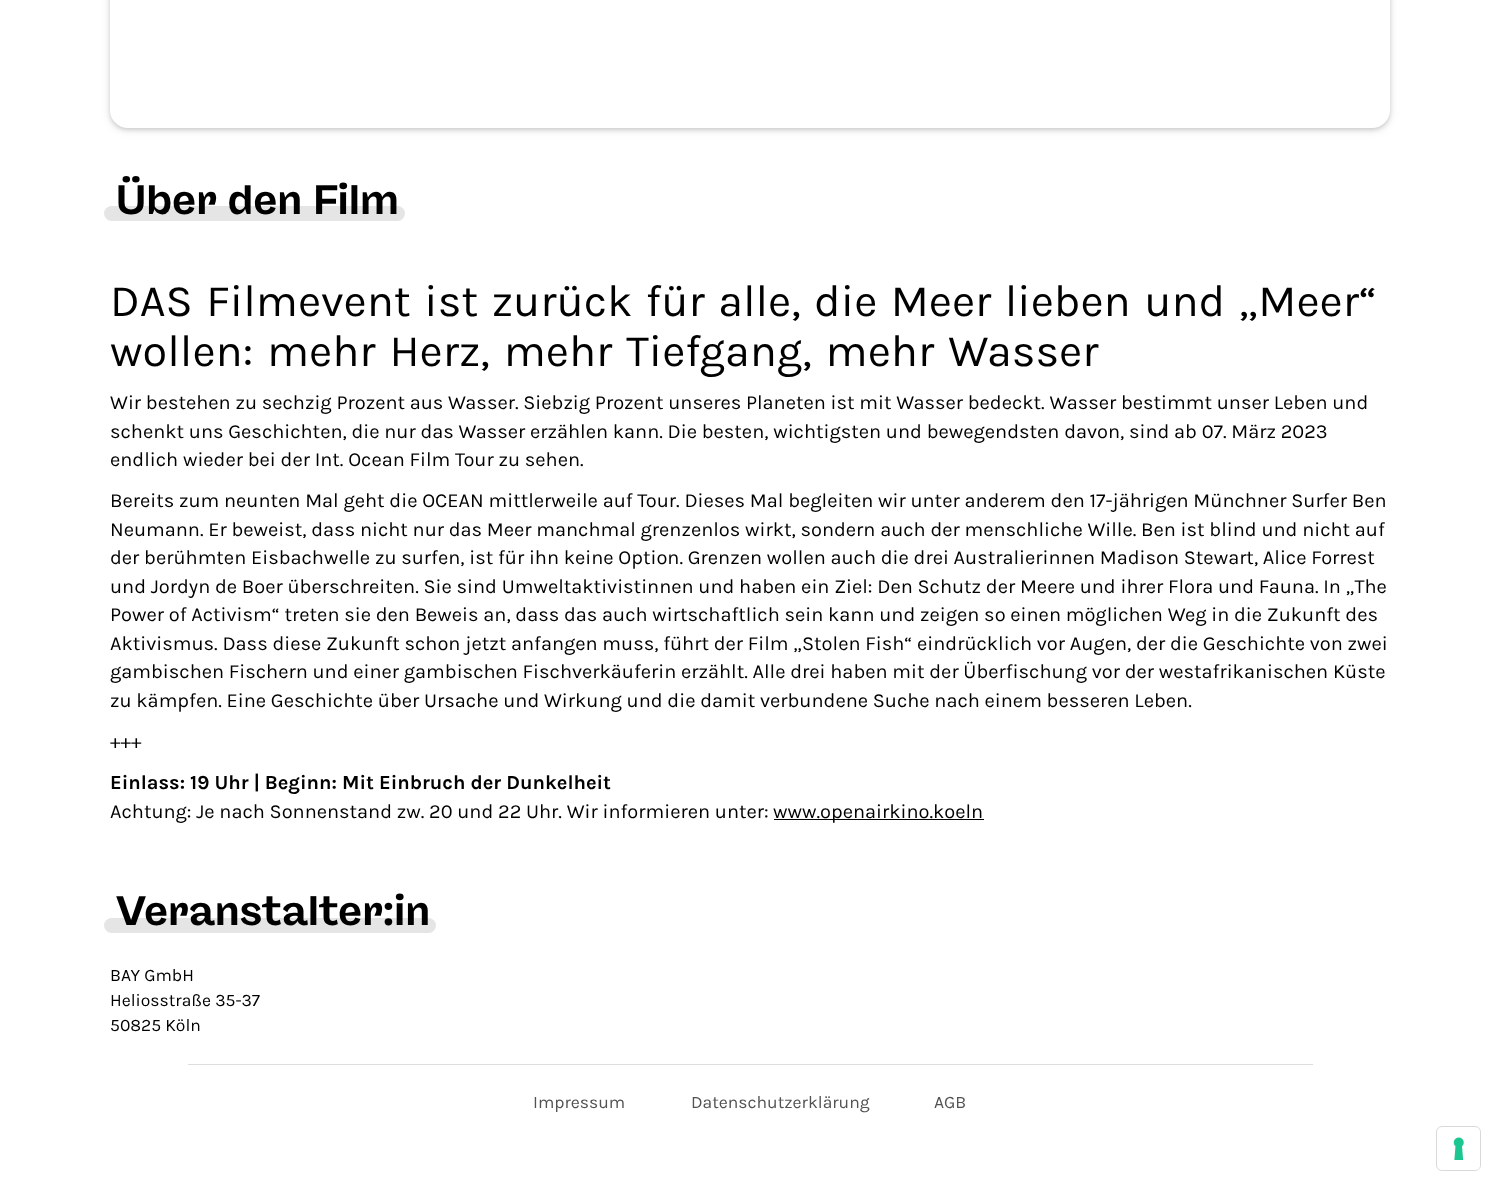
async function draw(canvas) {
  canvas.width = 1499;
  canvas.height = 1190;
  const ctx = canvas.getContext('2d');
  ctx.miterLimit = 4;
  ctx.fontKerning = 'normal';
  function label(s, x, y, font, color) {
    ctx.font = font;
    ctx.fillStyle = color;
    ctx.fillText(s, x, y);
  }
  function rect(x, y, w, h, color) {
    ctx.fillStyle = color;
    ctx.fillRect(x, y, w, h);
  }
  function roundedRect(x, y, w, h, r, color) {
    ctx.fillStyle = color;
    ctx.beginPath();
    ctx.roundRect(x, y, w, h, r);
    ctx.fill();
  }
  async function image(src, x, y, w, h) {
    const img = new Image();
    img.src = src;
    await img.decode();
    ctx.drawImage(img, x, y, w, h);
  }

  rect(0, 0, 1499, 1190, '#fff');
  ctx.fillStyle = '#00000024';
  ctx.filter = 'blur(2.5px)';
  ctx.beginPath();
  ctx.roundRect(111, -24, 1278, 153, 16);
  ctx.fill();
  ctx.filter = 'none';
  ctx.fillStyle = '#0000000f';
  ctx.filter = 'blur(6px)';
  ctx.beginPath();
  ctx.roundRect(110, -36, 1280, 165, 18);
  ctx.fill();
  ctx.filter = 'none';
  ctx.fillStyle = '#00000014';
  ctx.filter = 'blur(3px)';
  ctx.beginPath();
  ctx.roundRect(110, -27, 1280, 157, 18);
  ctx.fill();
  ctx.filter = 'none';
  roundedRect(110, -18, 1280, 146, 18, '#fff');
  label('Über den Film', 116, 214, 'bold 41.25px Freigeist', '#000');
  roundedRect(104, 206, 301, 15, 7.5, '#0000001a');
  ctx.wordSpacing = '2.75px';
  label('DAS Filmevent ist zurück für alle, die Meer lieben und „Meer“', 110, 316, '45px Karla', '#000');
  ctx.wordSpacing = '3.25px';
  label('wollen: mehr Herz, mehr Tiefgang, mehr Wasser', 110, 366, '45px Karla', '#000');
  ctx.wordSpacing = '0px';
  label('Wir bestehen zu sechzig Prozent aus Wasser. Siebzig Prozent unseres Planeten ist mit Wasser bedeckt. Wasser bestimmt unser Leben und', 110, 409, '20px Karla', '#000');
  label('schenkt uns Geschichten, die nur das Wasser erzählen kann. Die besten, wichtigsten und bewegendsten davon, sind ab 07. März 2023', 110, 438, '20px Karla', '#000');
  label('endlich wieder bei der Int. Ocean Film Tour zu sehen.', 110, 466, '20px Karla', '#000');
  label('Bereits zum neunten Mal geht die OCEAN mittlerweile auf Tour. Dieses Mal begleiten wir unter anderem den 17-jährigen Münchner Surfer Ben', 110, 507, '20px Karla', '#000');
  label('Neumann. Er beweist, dass nicht nur das Meer manchmal grenzenlos wirkt, sondern auch der menschliche Wille. Ben ist blind und nicht auf', 110, 536, '20px Karla', '#000');
  label('der berühmten Eisbachwelle zu surfen, ist für ihn keine Option. Grenzen wollen auch die drei Australierinnen Madison Stewart, Alice Forrest', 110, 564, '20px Karla', '#000');
  label('und Jordyn de Boer überschreiten. Sie sind Umweltaktivistinnen und haben ein Ziel: Den Schutz der Meere und ihrer Flora und Fauna. In „The', 110, 593, '20px Karla', '#000');
  label('Power of Activism“ treten sie den Beweis an, dass das auch wirtschaftlich sein kann und zeigen so einen möglichen Weg in die Zukunft des', 110, 621, '20px Karla', '#000');
  label('Aktivismus. Dass diese Zukunft schon jetzt anfangen muss, führt der Film „Stolen Fish“ eindrücklich vor Augen, der die Geschichte von zwei', 110, 650, '20px Karla', '#000');
  label('gambischen Fischern und einer gambischen Fischverkäuferin erzählt. Alle drei haben mit der Überfischung vor der westafrikanischen Küste', 110, 678, '20px Karla', '#000');
  label('zu kämpfen. Eine Geschichte über Ursache und Wirkung und die damit verbundene Suche nach einem besseren Leben.', 110, 707, '20px Karla', '#000');
  label('+++', 110, 748, '20px Karla', '#000');
  label('Einlass: 19 Uhr | Beginn: Mit Einbruch der Dunkelheit', 110, 789, 'bold 20px Karla', '#000');
  label('Achtung: Je nach Sonnenstand zw. 20 und 22 Uhr. Wir informieren unter:', 110, 818, '20px Karla', '#000');
  rect(774, 819, 210, 1, '#000');
  label('www.openairkino.koeln', 773, 818, '20px Karla', '#000');
  label('Veranstalter:in', 116, 925, 'bold 41.25px Freigeist', '#000');
  roundedRect(104, 918, 332, 15, 7.5, '#0000001a');
  label('BAY GmbH', 110, 981, '17.5px Karla', '#000');
  label('Heliosstraße 35-37', 110, 1006, '17.5px Karla', '#000');
  label('50825 Köln', 110, 1031, '17.5px Karla', '#000');
  rect(188, 1064, 1125, 1, '#ddd');
  label('Impressum', 533, 1108, '17.5px Karla', '#525252');
  label('Datenschutzerklärung', 691, 1108, '17.5px Karla', '#525252');
  label('AGB', 934, 1108, '17.5px Karla', '#525252');
  ctx.beginPath();
  ctx.roundRect(1436.5, 1126.5, 44, 44, 5.5);
  ctx.strokeStyle = '#d9d9d9';
  ctx.stroke();
  roundedRect(1438, 1128, 42, 42, 5, '#fff');
  await image('assets/img1.png', 1453, 1137, 11, 23);
}

draw(document.querySelector('canvas'));
